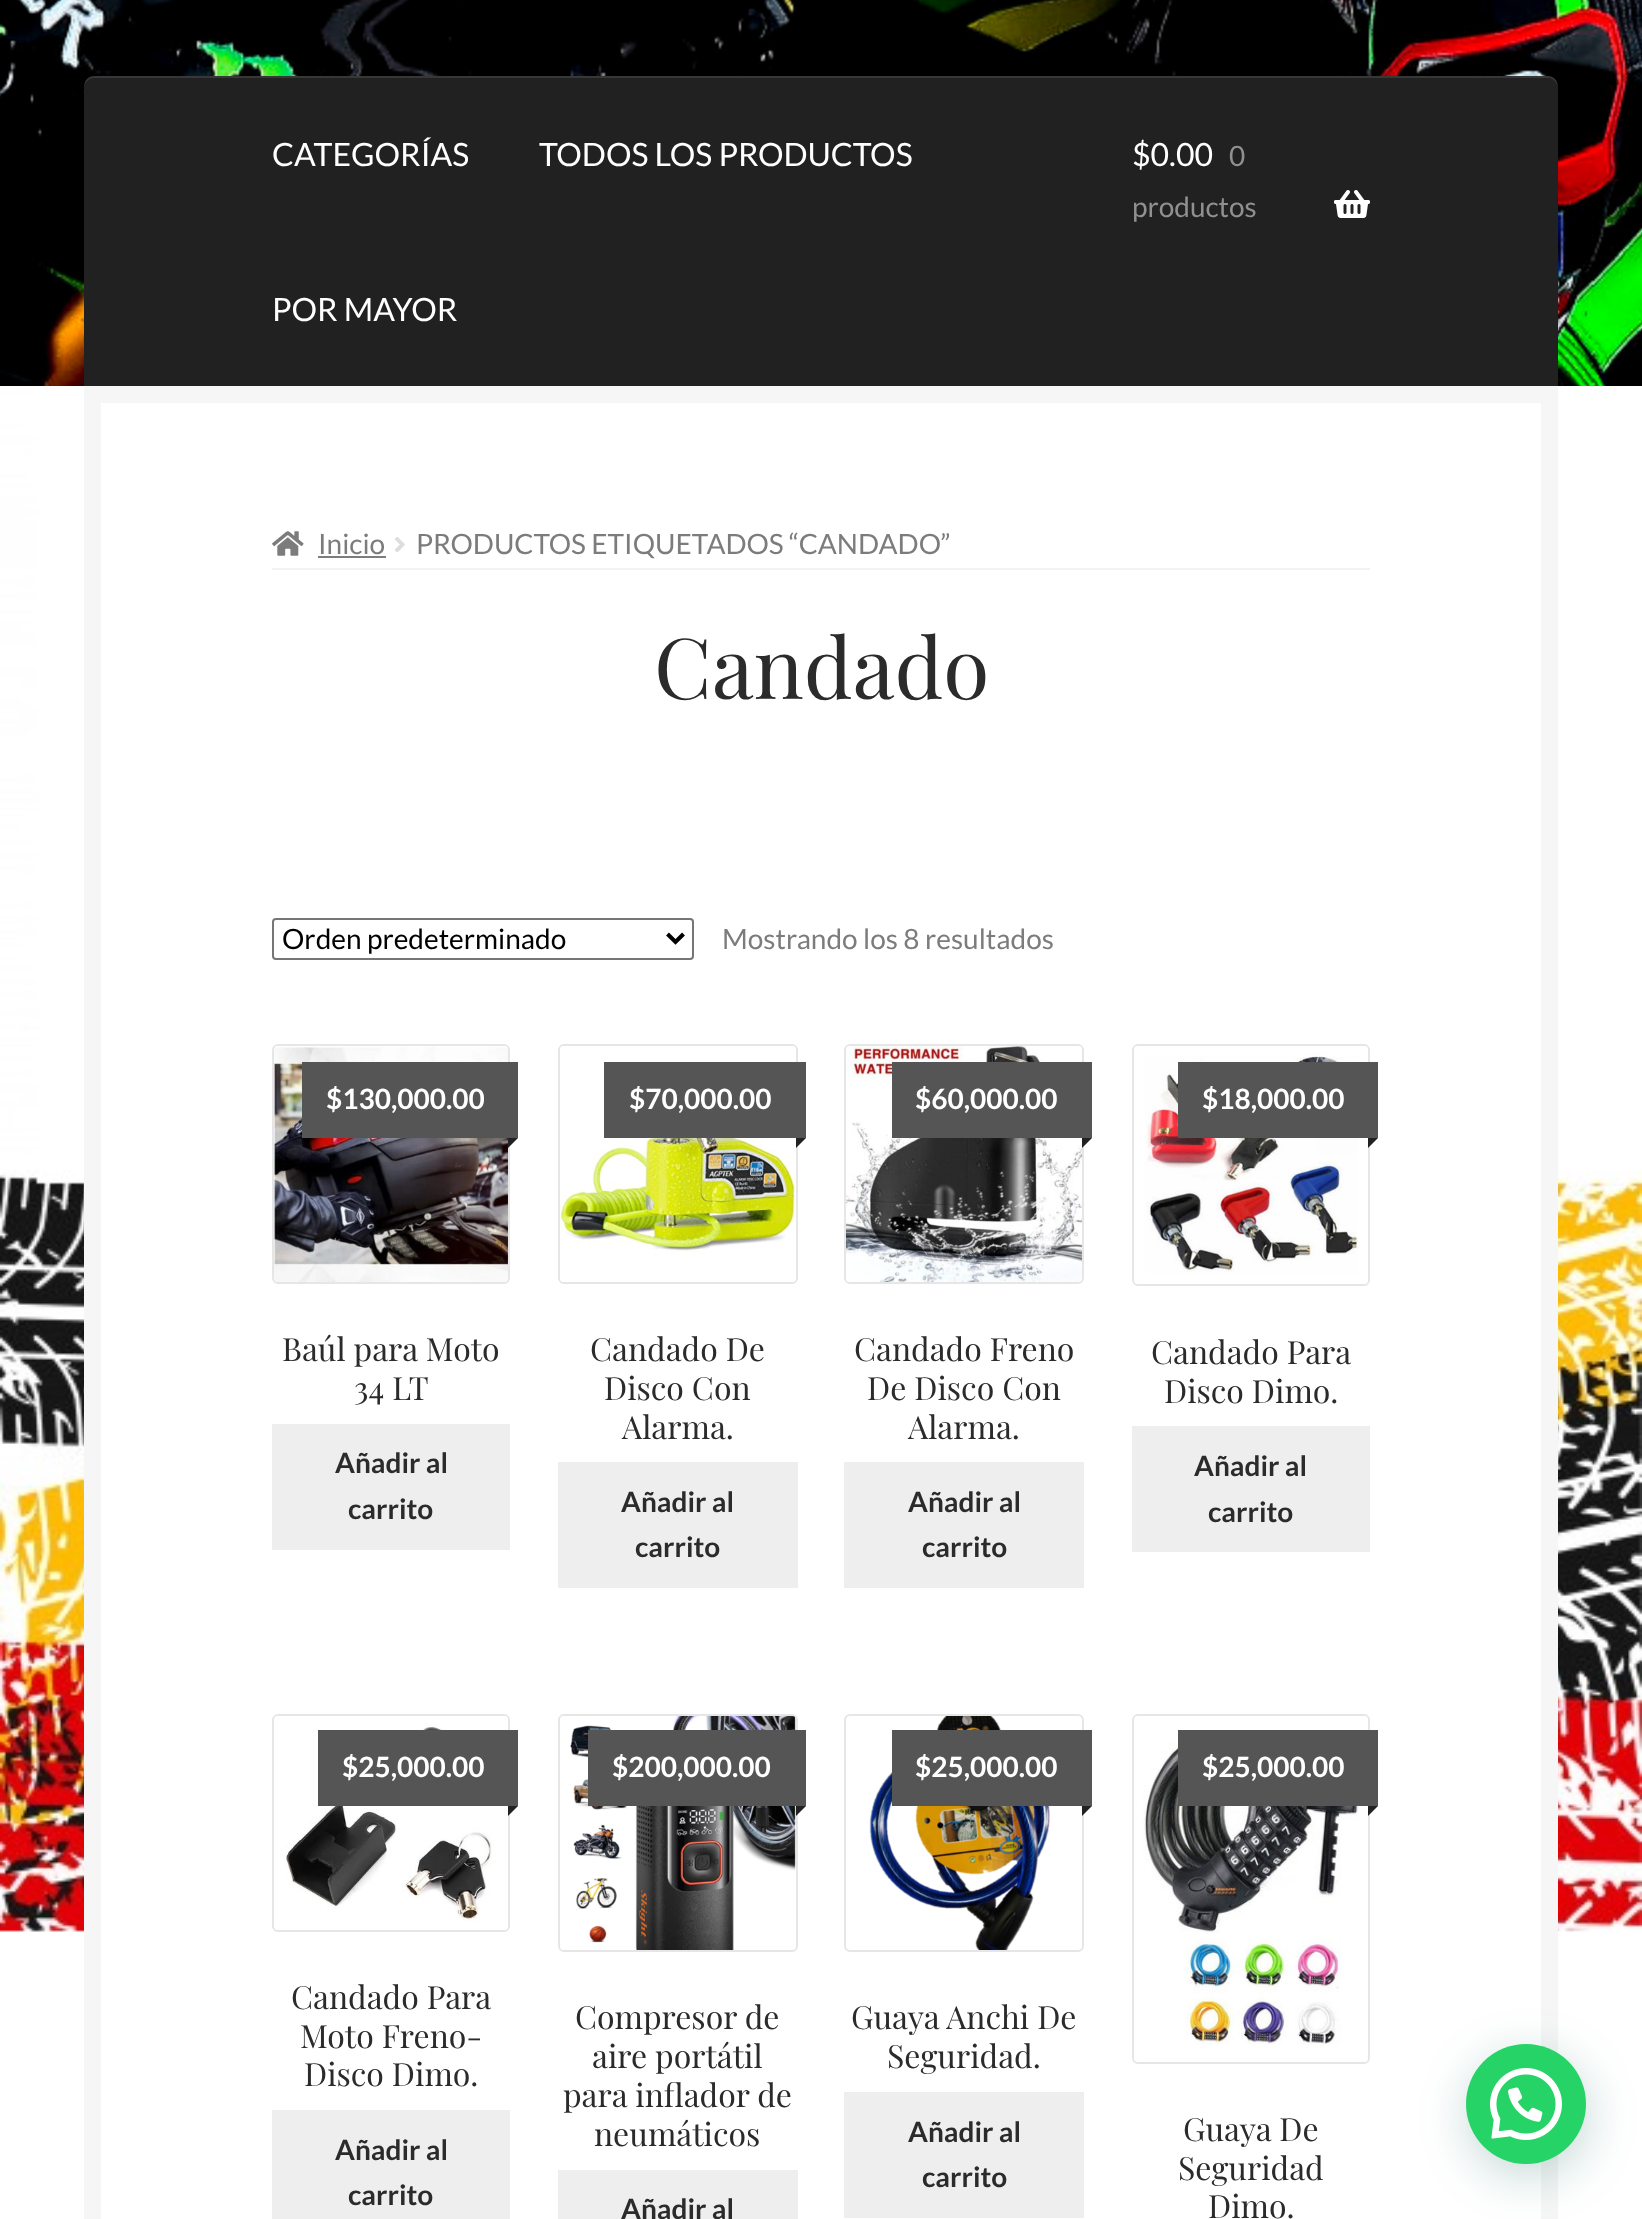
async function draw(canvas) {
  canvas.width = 1642;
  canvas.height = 2219;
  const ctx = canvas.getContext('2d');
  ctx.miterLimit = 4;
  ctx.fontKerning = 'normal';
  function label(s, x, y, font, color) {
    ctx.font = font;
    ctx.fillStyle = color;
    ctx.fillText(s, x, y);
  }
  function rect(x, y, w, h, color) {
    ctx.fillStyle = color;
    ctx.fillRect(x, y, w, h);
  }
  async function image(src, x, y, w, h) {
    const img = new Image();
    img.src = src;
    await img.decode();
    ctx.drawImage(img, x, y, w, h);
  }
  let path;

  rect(0, 0, 1642, 2219, '#fff');
  await image('assets/img1.png', 0, 386, 1642, 1546);
  await image('assets/img2.png', 0, 0, 1642, 386);
  ctx.fillStyle = '#212121';
  ctx.beginPath();
  ctx.roundRect(84, 76, 1474, 310, [10, 10, 0, 0]);
  ctx.fill();
  ctx.fillStyle = '#ffffff1a';
  path = new Path2D('M94 78H1548C1553 78 1558 83 1558 88C1558 82 1555 76 1548 76H94C87 76 84 82 84 88C84 83 89 78 94 78Z');
  ctx.fill(path);
  label('CATEGORÍAS', 272, 166, '32px Lato', '#fff');
  label('TODOS LOS PRODUCTOS', 539, 166, '32px Lato', '#fff');
  label('POR MAYOR', 272, 321, '32px Lato', '#fff');
  label('$0.00', 1132, 166, '32px Lato', '#fff');
  label('0', 1229, 166, '28px Lato', '#909090');
  label('productos', 1132, 217, '28px Lato', '#909090');
  await image('assets/img3.png', 1334, 190, 36, 28);
  rect(101, 1169, 1440, 763, '#fff');
  ctx.strokeStyle = '#f6f6f6';
  ctx.lineWidth = 17;
  ctx.strokeRect(92.5, 394.5, 1457, 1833);
  rect(272, 568, 1098, 2, '#f2f2f2');
  await image('assets/img4.png', 272, 531, 32, 25);
  label('Inicio', 318, 554, '28px Lato', '#7c7c7c');
  rect(318, 556, 68, 2, '#7c7c7c');
  await image('assets/img5.png', 395, 537, 10, 16);
  label('PRODUCTOS ETIQUETADOS “CANDADO”', 416, 554, '28px Lato', '#7c7c7c');
  label('Candado', 654, 699, '84px Playfair Display', '#2b2b2b');
  ctx.beginPath();
  ctx.roundRect(273, 919, 420, 40, 3);
  ctx.strokeStyle = '#767676';
  ctx.lineWidth = 2;
  ctx.stroke();
  path = new Path2D('M667.5 934L675.5 942L683.5 934');
  ctx.strokeStyle = '#000';
  ctx.lineWidth = 4;
  ctx.stroke(path);
  label('Orden predeterminado', 282, 949, '28px Lato', '#000');
  label('Mostrando los 8 resultados', 722, 949, '28px Lato', '#7c7c7c');
  ctx.beginPath();
  ctx.roundRect(273, 1045, 236, 238, 5);
  ctx.strokeStyle = '#e6e6e6';
  ctx.lineWidth = 2;
  ctx.stroke();
  await image('assets/img6.png', 274, 1046, 234, 236);
  rect(302, 1062, 216, 76, '#555');
  label('$130,000.00', 326, 1109, 'bold 28px Lato', '#fff');
  ctx.fillStyle = '#222';
  path = new Path2D('M508 1138H518L508 1148Z');
  ctx.fill(path);
  label('Baúl para Moto', 282, 1361, '32px Playfair Display', '#2b2b2b');
  label('34 LT', 354, 1400, '32px Playfair Display', '#2b2b2b');
  rect(272, 1424, 238, 126, '#eee');
  label('Añadir al', 335, 1473, 'bold 28px Lato', '#2b2b2b');
  label('carrito', 348, 1519, 'bold 28px Lato', '#2b2b2b');
  ctx.beginPath();
  ctx.roundRect(559, 1045, 238, 238, 5);
  ctx.stroke();
  await image('assets/img7.png', 560, 1046, 236, 236);
  rect(604, 1062, 202, 76, '#555');
  label('$70,000.00', 629, 1109, 'bold 28px Lato', '#fff');
  ctx.fillStyle = '#222';
  path = new Path2D('M796 1138H806L796 1148Z');
  ctx.fill(path);
  label('Candado De', 590, 1361, '32px Playfair Display', '#2b2b2b');
  label('Disco Con', 604, 1400, '32px Playfair Display', '#2b2b2b');
  label('Alarma.', 622, 1439, '32px Playfair Display', '#2b2b2b');
  rect(558, 1462, 240, 126, '#eee');
  label('Añadir al', 621, 1512, 'bold 28px Lato', '#2b2b2b');
  label('carrito', 635, 1557, 'bold 28px Lato', '#2b2b2b');
  ctx.beginPath();
  ctx.roundRect(845, 1045, 238, 238, 5);
  ctx.stroke();
  await image('assets/img8.png', 846, 1046, 236, 236);
  rect(892, 1062, 200, 76, '#555');
  label('$60,000.00', 915, 1109, 'bold 28px Lato', '#fff');
  ctx.fillStyle = '#222';
  path = new Path2D('M1082 1138H1092L1082 1148Z');
  ctx.fill(path);
  label('Candado Freno', 854, 1361, '32px Playfair Display', '#2b2b2b');
  label('De Disco Con', 867, 1400, '32px Playfair Display', '#2b2b2b');
  label('Alarma.', 908, 1439, '32px Playfair Display', '#2b2b2b');
  rect(844, 1462, 240, 126, '#eee');
  label('Añadir al', 908, 1512, 'bold 28px Lato', '#2b2b2b');
  label('carrito', 922, 1557, 'bold 28px Lato', '#2b2b2b');
  ctx.beginPath();
  ctx.roundRect(1133, 1045, 236, 240, 5);
  ctx.stroke();
  await image('assets/img9.png', 1134, 1046, 234, 238);
  rect(1178, 1062, 200, 76, '#555');
  label('$18,000.00', 1202, 1109, 'bold 28px Lato', '#fff');
  ctx.fillStyle = '#222';
  path = new Path2D('M1368 1138H1378L1368 1148Z');
  ctx.fill(path);
  label('Candado Para', 1151, 1364, '32px Playfair Display', '#2b2b2b');
  label('Disco Dimo.', 1164, 1403, '32px Playfair Display', '#2b2b2b');
  rect(1132, 1426, 238, 126, '#eee');
  label('Añadir al', 1194, 1476, 'bold 28px Lato', '#2b2b2b');
  label('carrito', 1208, 1522, 'bold 28px Lato', '#2b2b2b');
  ctx.beginPath();
  ctx.roundRect(273, 1715, 236, 216, 5);
  ctx.stroke();
  await image('assets/img10.png', 274, 1716, 234, 214);
  rect(318, 1730, 200, 76, '#555');
  label('$25,000.00', 342, 1777, 'bold 28px Lato', '#fff');
  ctx.fillStyle = '#222';
  path = new Path2D('M508 1806H518L508 1816Z');
  ctx.fill(path);
  label('Candado Para', 291, 2009, '32px Playfair Display', '#2b2b2b');
  label('Moto Freno-', 300, 2048, '32px Playfair Display', '#2b2b2b');
  label('Disco Dimo.', 304, 2086, '32px Playfair Display', '#2b2b2b');
  rect(272, 2110, 238, 109, '#eee');
  label('Añadir al', 335, 2160, 'bold 28px Lato', '#2b2b2b');
  label('carrito', 348, 2205, 'bold 28px Lato', '#2b2b2b');
  ctx.beginPath();
  ctx.roundRect(559, 1715, 238, 236, 5);
  ctx.stroke();
  await image('assets/img11.png', 560, 1716, 236, 234);
  rect(588, 1730, 218, 76, '#555');
  label('$200,000.00', 612, 1777, 'bold 28px Lato', '#fff');
  ctx.fillStyle = '#222';
  path = new Path2D('M796 1806H806L796 1816Z');
  ctx.fill(path);
  label('Compresor de', 575, 2029, '32px Playfair Display', '#2b2b2b');
  label('aire portátil', 592, 2068, '32px Playfair Display', '#2b2b2b');
  label('para inflador de', 563, 2107, '32px Playfair Display', '#2b2b2b');
  label('neumáticos', 594, 2146, '32px Playfair Display', '#2b2b2b');
  rect(558, 2170, 240, 49, '#eee');
  label('Añadir al', 621, 2219, 'bold 28px Lato', '#2b2b2b');
  ctx.beginPath();
  ctx.roundRect(845, 1715, 238, 236, 5);
  ctx.stroke();
  await image('assets/img12.png', 869, 1716, 181, 234);
  rect(892, 1730, 200, 76, '#555');
  label('$25,000.00', 915, 1777, 'bold 28px Lato', '#fff');
  ctx.fillStyle = '#222';
  path = new Path2D('M1082 1806H1092L1082 1816Z');
  ctx.fill(path);
  label('Guaya Anchi De', 851, 2029, '32px Playfair Display', '#2b2b2b');
  label('Seguridad.', 887, 2068, '32px Playfair Display', '#2b2b2b');
  rect(844, 2092, 240, 126, '#eee');
  label('Añadir al', 908, 2142, 'bold 28px Lato', '#2b2b2b');
  label('carrito', 922, 2187, 'bold 28px Lato', '#2b2b2b');
  ctx.beginPath();
  ctx.roundRect(1133, 1715, 236, 348, 5);
  ctx.stroke();
  await image('assets/img13.png', 1134, 1716, 234, 346);
  rect(1178, 1730, 200, 76, '#555');
  label('$25,000.00', 1202, 1777, 'bold 28px Lato', '#fff');
  ctx.fillStyle = '#222';
  path = new Path2D('M1368 1806H1378L1368 1816Z');
  ctx.fill(path);
  label('Guaya De', 1183, 2141, '32px Playfair Display', '#2b2b2b');
  label('Seguridad', 1178, 2180, '32px Playfair Display', '#2b2b2b');
  label('Dimo.', 1208, 2218, '32px Playfair Display', '#2b2b2b');
  ctx.fillStyle = '#075e543d';
  ctx.filter = 'blur(24px)';
  ctx.beginPath();
  ctx.roundRect(1468, 2056, 120, 120, 60);
  ctx.fill();
  ctx.filter = 'none';
  ctx.fillStyle = '#25d366';
  ctx.beginPath();
  ctx.arc(1526, 2104, 60, 0, 2 * Math.PI);
  ctx.fill();
  await image('assets/img14.png', 1490, 2068, 72, 72);
}

draw(document.querySelector('canvas'));
